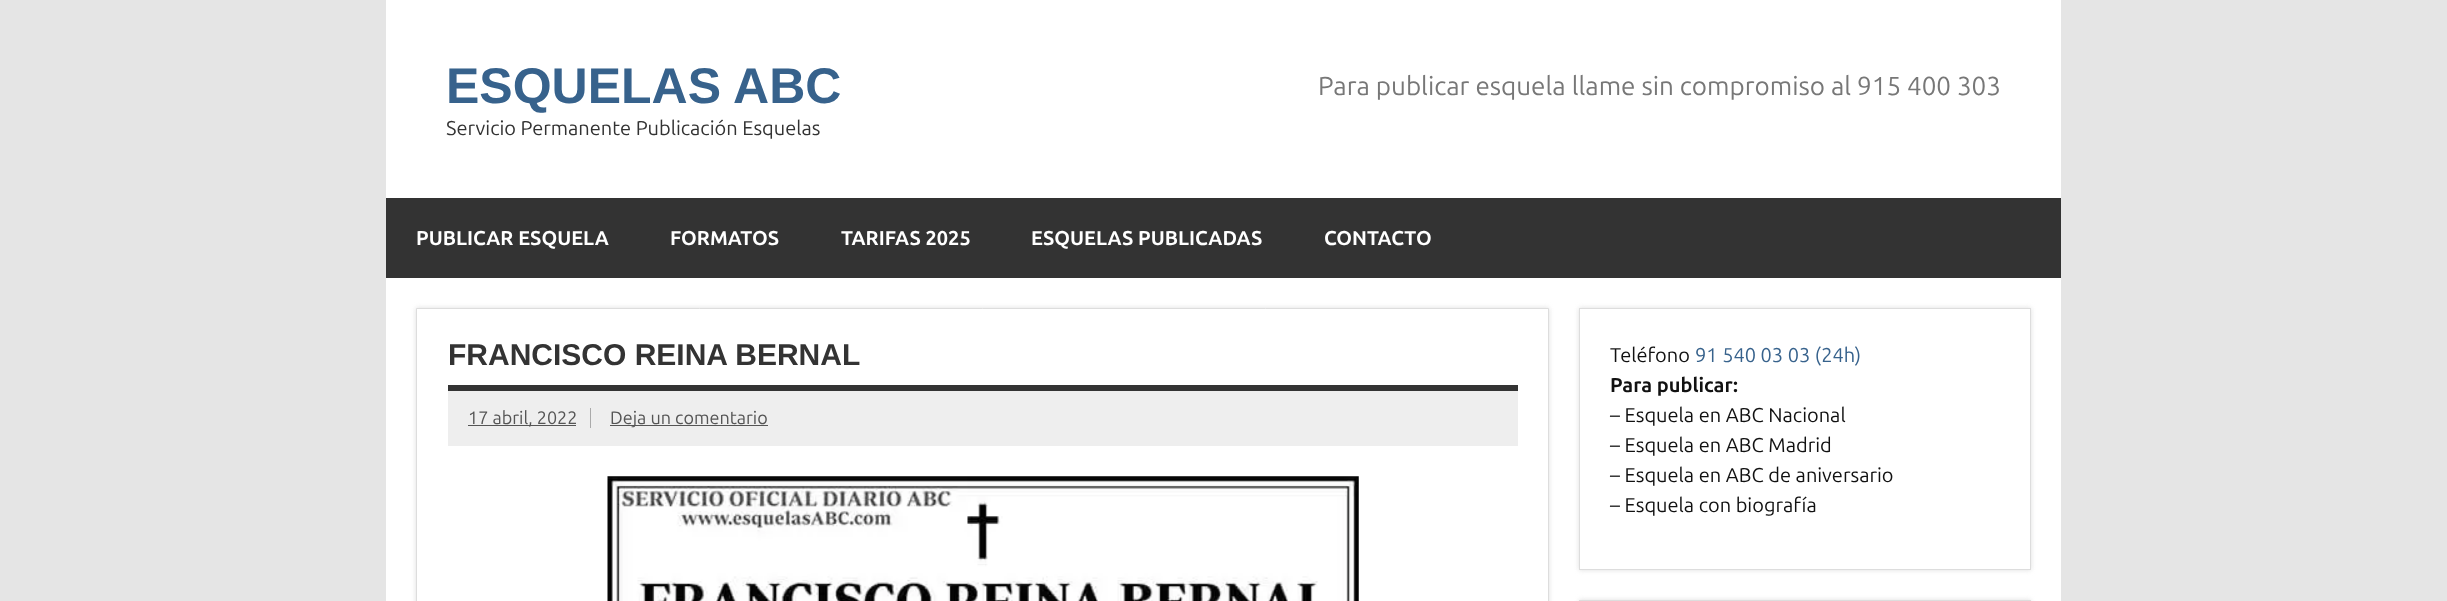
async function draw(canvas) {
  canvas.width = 2447;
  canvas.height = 601;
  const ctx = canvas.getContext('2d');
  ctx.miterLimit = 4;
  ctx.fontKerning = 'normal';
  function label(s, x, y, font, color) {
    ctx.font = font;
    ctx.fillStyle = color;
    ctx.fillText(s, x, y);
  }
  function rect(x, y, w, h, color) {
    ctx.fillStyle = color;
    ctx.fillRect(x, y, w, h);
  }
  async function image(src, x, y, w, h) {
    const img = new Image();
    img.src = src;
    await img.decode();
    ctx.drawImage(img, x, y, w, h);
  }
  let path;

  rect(0, 0, 2447, 601, '#e5e5e5');
  rect(386, 0, 1675, 601, '#fff');
  label('ESQUELAS ABC', 446, 103, 'bold 50px Liberation Sans', '#37628c');
  label('Servicio Permanente Publicación Esquelas', 446, 135, '20px Ubuntu', '#333');
  label('Para publicar esquela llame sin compromiso al 915 400 303', 1318, 95, '26px Ubuntu', '#777');
  rect(386, 198, 1675, 80, '#333');
  label('PUBLICAR ESQUELA', 416, 245, 'bold 20px Ubuntu', '#fff');
  label('FORMATOS', 670, 245, 'bold 20px Ubuntu', '#fff');
  label('TARIFAS 2025', 841, 245, 'bold 20px Ubuntu', '#fff');
  label('ESQUELAS PUBLICADAS', 1031, 245, 'bold 20px Ubuntu', '#fff');
  label('CONTACTO', 1324, 245, 'bold 20px Ubuntu', '#fff');
  ctx.fillStyle = '#ddd';
  ctx.filter = 'blur(2.5px)';
  ctx.beginPath();
  ctx.rect(416, 308, 1133, 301);
  ctx.fill();
  ctx.filter = 'none';
  ctx.fillStyle = '#fff';
  ctx.beginPath();
  ctx.rect(416.5, 308.5, 1132, 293);
  ctx.fill();
  ctx.strokeStyle = '#ddd';
  ctx.stroke();
  rect(448, 385, 1070, 6, '#333');
  label('FRANCISCO REINA BERNAL', 448, 365, 'bold 30px Liberation Sans', '#333');
  rect(448, 391, 1070, 55, '#eee');
  rect(468, 425, 108, 1, '#555');
  label('17 abril, 2022', 468, 424, '18px Ubuntu', '#555');
  rect(590, 408, 1, 20, '#aaa');
  rect(610, 425, 158, 1, '#555');
  label('Deja un comentario', 610, 424, '18px Ubuntu', '#555');
  await image('assets/img1.png', 607, 476, 752, 125);
  ctx.save();
  path = new Path2D('M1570 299H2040V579H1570ZM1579 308H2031V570H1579Z');
  ctx.clip(path, 'evenodd');
  ctx.fillStyle = '#ddd';
  ctx.filter = 'blur(2.5px)';
  ctx.beginPath();
  ctx.rect(1579, 308, 452, 262);
  ctx.fill();
  ctx.filter = 'none';
  ctx.restore();
  ctx.strokeRect(1579.5, 308.5, 451, 261);
  label('Teléfono', 1610, 362, '20px Ubuntu', '#111');
  label('91 540 03 03 (24h)', 1695, 362, '20px Ubuntu', '#37628c');
  label('Para publicar:', 1610, 392, 'bold 20px Ubuntu', '#111');
  label('– Esquela en ABC Nacional', 1610, 422, '20px Ubuntu', '#111');
  label('– Esquela en ABC Madrid', 1610, 452, '20px Ubuntu', '#111');
  label('– Esquela en ABC de aniversario', 1610, 482, '20px Ubuntu', '#111');
  label('– Esquela con biografía', 1610, 512, '20px Ubuntu', '#111');
  ctx.fillStyle = '#ddd';
  ctx.filter = 'blur(2.5px)';
  ctx.beginPath();
  ctx.rect(1579, 600, 452, 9);
  ctx.fill();
  ctx.filter = 'none';
  ctx.strokeRect(1579.5, 600.5, 451, 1);
}

draw(document.querySelector('canvas'));
